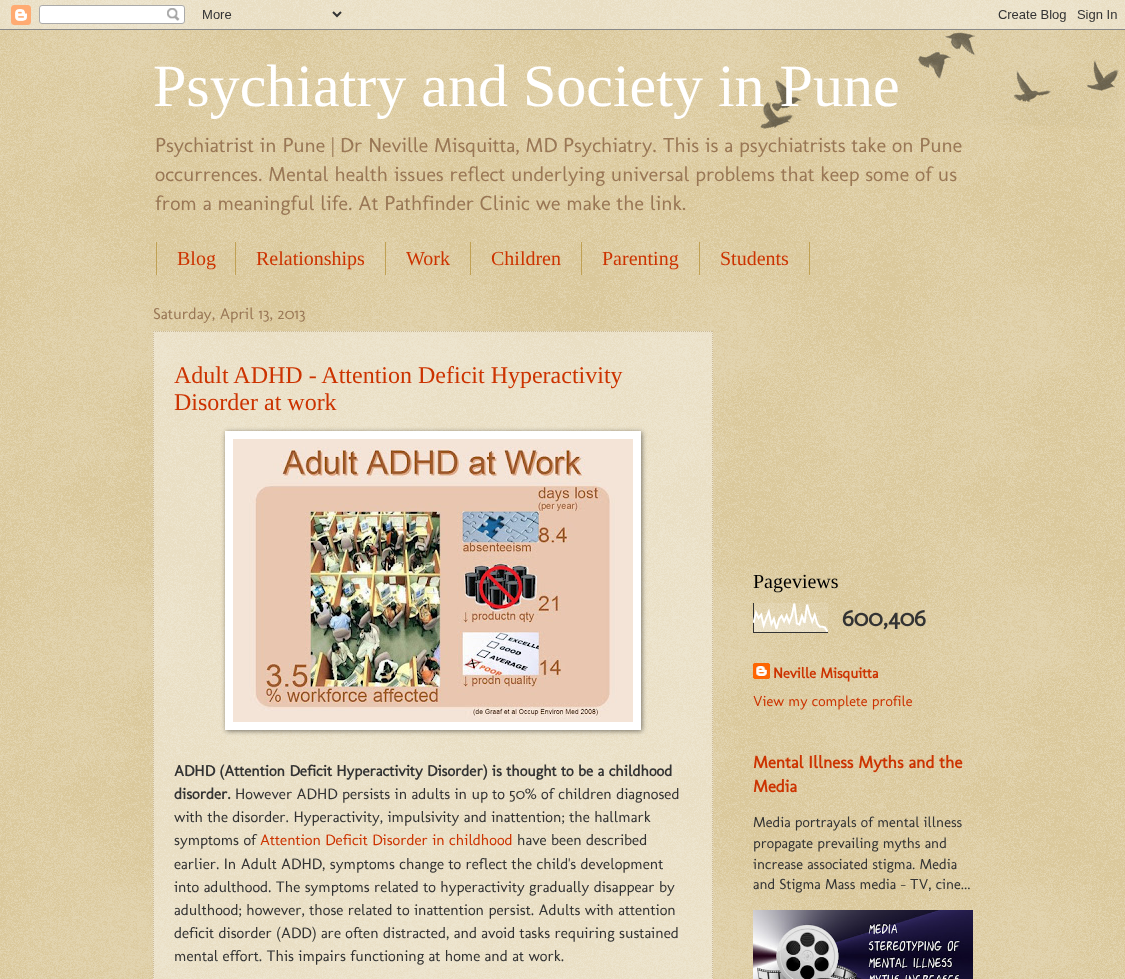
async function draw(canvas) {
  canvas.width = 1125;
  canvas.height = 979;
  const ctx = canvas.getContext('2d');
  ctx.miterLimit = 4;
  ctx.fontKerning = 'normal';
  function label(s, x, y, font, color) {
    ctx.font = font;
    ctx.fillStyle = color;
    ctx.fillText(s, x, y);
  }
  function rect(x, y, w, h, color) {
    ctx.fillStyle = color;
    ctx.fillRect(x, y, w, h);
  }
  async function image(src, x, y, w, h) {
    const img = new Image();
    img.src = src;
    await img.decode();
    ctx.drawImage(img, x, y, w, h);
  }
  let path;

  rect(0, 0, 1125, 979, '#c0a154');
  await image('assets/img1.png', 0, 0, 1125, 979);
  await image('assets/img2.png', 0, 0, 1125, 30);
  await image('assets/img3.png', 760, 32, 359, 97);
  label('Psychiatry and Society in Pune', 153, 106, '60px Liberation Serif', '#fff');
  label('Psychiatrist in Pune | Dr Neville Misquitta, MD Psychiatry. This is a psychiatrists take on Pune', 155, 152, '20.6px Molengo', '#975');
  label('occurrences. Mental health issues reflect underlying universal problems that keep some of us', 155, 181, '20.6px Molengo', '#975');
  label('from a meaningful life. At Pathfinder Clinic we make the link.', 155, 210, '20.6px Molengo', '#975');
  rect(235, 242, 1, 33, '#c0a154');
  rect(156, 242, 1, 33, '#c0a154');
  label('Blog', 177, 265, '20px Liberation Serif', '#c30');
  rect(385, 242, 1, 33, '#c0a154');
  label('Relationships', 256, 265, '20px Liberation Serif', '#c30');
  rect(470, 242, 1, 33, '#c0a154');
  label('Work', 406, 265, '20px Liberation Serif', '#c30');
  rect(581, 242, 1, 33, '#c0a154');
  label('Children', 491, 265, '20px Liberation Serif', '#c30');
  rect(699, 242, 1, 33, '#c0a154');
  label('Parenting', 602, 265, '20px Liberation Serif', '#c30');
  rect(809, 242, 1, 33, '#c0a154');
  label('Students', 720, 265, '20px Liberation Serif', '#c30');
  label('Saturday, April 13, 2013', 153, 319, '16px Molengo', '#975');
  rect(153, 331, 560, 648, '#ffffff66');
  path = new Path2D('M153 331.5H713');
  ctx.strokeStyle = '#cb9';
  ctx.setLineDash([1, 1]);
  ctx.stroke(path);
  path = new Path2D('M712.5 331V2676');
  ctx.stroke(path);
  path = new Path2D('M153.5 331V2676');
  ctx.stroke(path);
  label('Adult ADHD - Attention Deficit Hyperactivity', 174, 383, '24px Liberation Serif', '#c30');
  label('Disorder at work', 174, 410, '24px Liberation Serif', '#c30');
  ctx.fillStyle = '#00000080';
  ctx.filter = 'blur(2.5px)';
  ctx.beginPath();
  ctx.rect(226, 432, 416, 299);
  ctx.fill();
  ctx.filter = 'none';
  rect(225, 431, 416, 299, '#fff');
  await image('assets/img4.png', 233, 439, 400, 283);
  label('ADHD (Attention Deficit Hyperactivity Disorder) is thought to be a childhood', 174, 776, 'bold 15.45px Molengo', '#333');
  label('disorder.', 174, 799, 'bold 15.45px Molengo', '#333');
  label('However ADHD persists in adults in up to 50% of children diagnosed', 235, 799, '15.45px Molengo', '#333');
  label('with the disorder. Hyperactivity, impulsivity and inattention; the hallmark', 174, 822, '15.45px Molengo', '#333');
  label('symptoms of', 174, 845, '15.45px Molengo', '#333');
  label('Attention Deficit Disorder in childhood', 260, 845, '15.45px Molengo', '#c30');
  label('have been described', 517, 845, '15.45px Molengo', '#333');
  label('earlier. In Adult ADHD, symptoms change to reflect the child\'s development', 174, 869, '15.45px Molengo', '#333');
  label('into adulthood. The symptoms related to hyperactivity gradually disappear by', 174, 892, '15.45px Molengo', '#333');
  label('adulthood; however, those related to inattention persist. Adults with attention', 174, 915, '15.45px Molengo', '#333');
  label('deficit disorder (ADD) are often distracted, and avoid tasks requiring sustained', 174, 938, '15.45px Molengo', '#333');
  label('mental effort. This impairs functioning at home and at work.', 174, 961, '15.45px Molengo', '#333');
  label('Pageviews', 753, 588, '20px Liberation Serif', '#000');
  await image('assets/img5.png', 753, 603, 75, 30);
  label('600,406', 842, 626, 'bold 24px Molengo', '#333');
  await image('assets/img6.png', 753, 663, 17, 16);
  label('Neville Misquitta', 773, 678, 'bold 14.75px Molengo', '#c30');
  label('View my complete profile', 753, 706, '14.75px Molengo', '#c30');
  label('Mental Illness Myths and the', 753, 768, 'bold 17.25px Molengo', '#c30');
  label('Media', 753, 792, 'bold 17.25px Molengo', '#c30');
  label('Media portrayals of mental illness', 753, 827, '14.75px Molengo', '#333');
  label('propagate prevailing myths and', 753, 848, '14.75px Molengo', '#333');
  label('increase associated stigma. Media', 753, 869, '14.75px Molengo', '#333');
  label('and Stigma Mass media – TV, cine...', 753, 889, '14.75px Molengo', '#333');
  await image('assets/img7.png', 753, 910, 220, 69);
}

draw(document.querySelector('canvas'));
